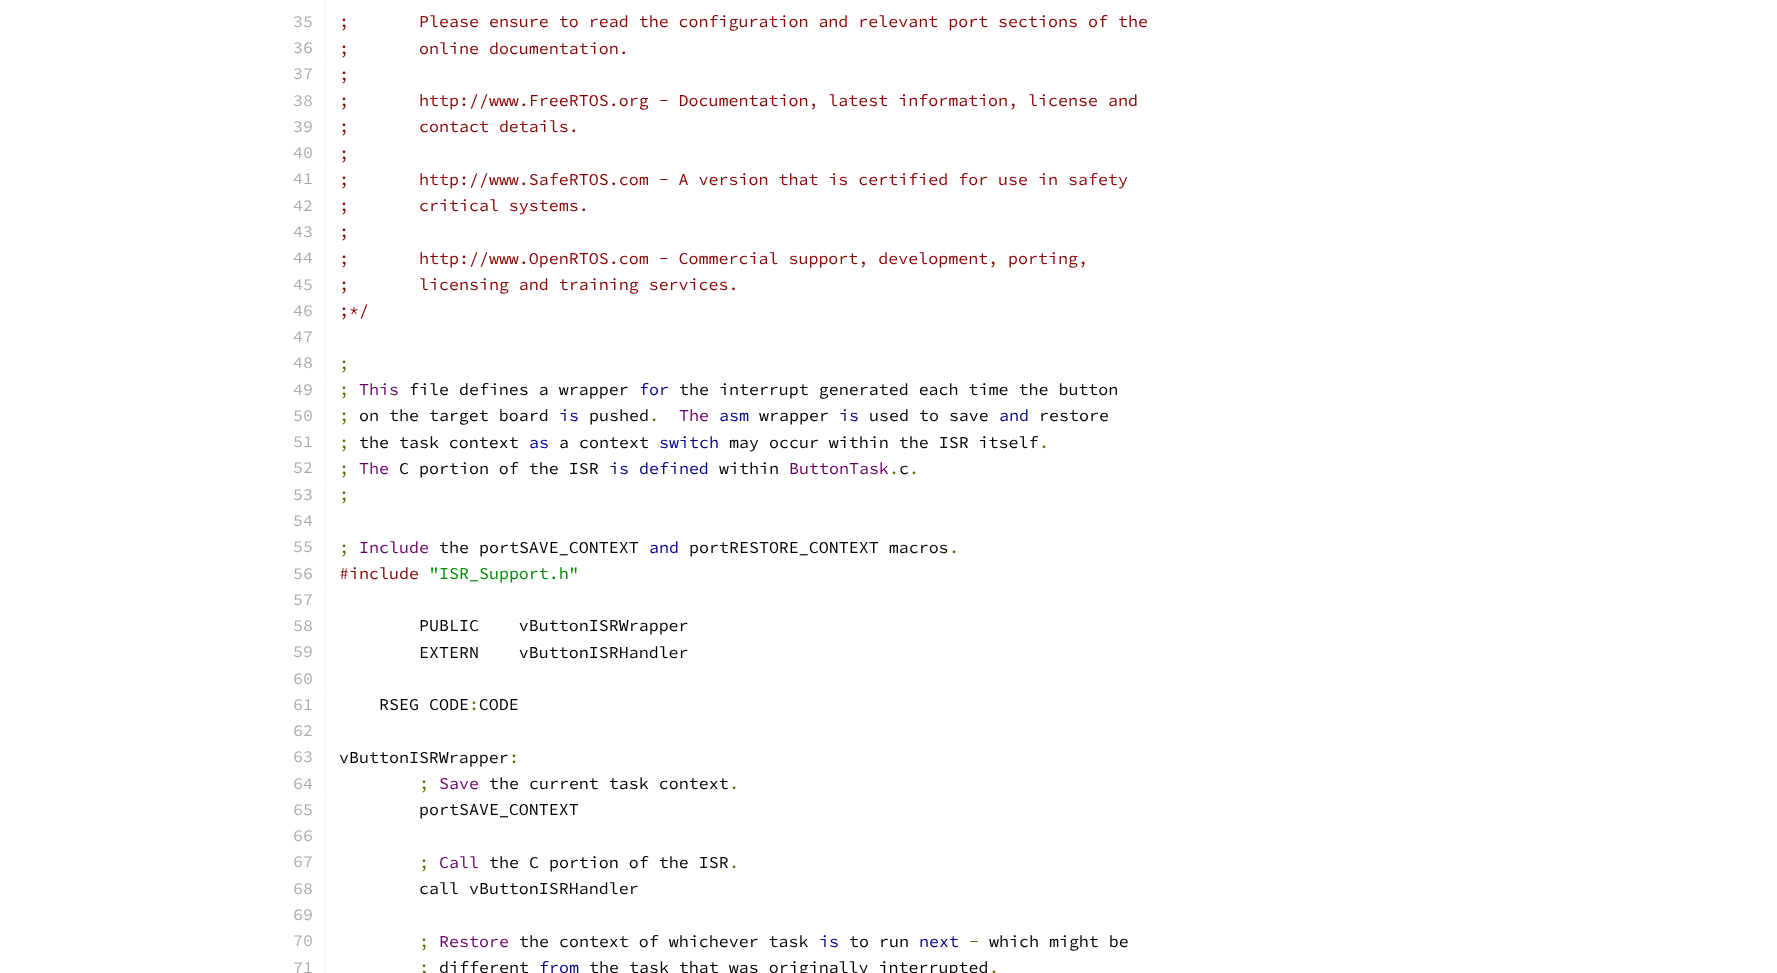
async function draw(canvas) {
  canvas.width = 1777;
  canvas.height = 973;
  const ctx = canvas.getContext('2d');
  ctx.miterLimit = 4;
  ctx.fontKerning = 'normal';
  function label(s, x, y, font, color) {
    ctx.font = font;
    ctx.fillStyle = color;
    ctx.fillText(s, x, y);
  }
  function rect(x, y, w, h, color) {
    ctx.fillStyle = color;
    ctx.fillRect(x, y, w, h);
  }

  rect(0, 0, 1777, 973, '#fff');
  rect(325, 0, 1, 35, '#f1f2f3');
  label('35', 293, 27, '200 16.65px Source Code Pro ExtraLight', '#aaa');
  label(';', 339, 27, '200 16.65px Source Code Pro ExtraLight', '#800');
  label('Please ensure to read the configuration and relevant port sections of the', 419, 27, '200 16.65px Source Code Pro ExtraLight', '#800');
  rect(325, 36, 1, 25, '#f1f2f3');
  label('36', 293, 53, '200 16.65px Source Code Pro ExtraLight', '#aaa');
  label(';', 339, 54, '200 16.65px Source Code Pro ExtraLight', '#800');
  label('online documentation.', 419, 54, '200 16.65px Source Code Pro ExtraLight', '#800');
  rect(325, 63, 1, 25, '#f1f2f3');
  label('37', 293, 79, '200 16.65px Source Code Pro ExtraLight', '#aaa');
  label(';', 339, 80, '200 16.65px Source Code Pro ExtraLight', '#800');
  rect(325, 89, 1, 25, '#f1f2f3');
  label('38', 293, 106, '200 16.65px Source Code Pro ExtraLight', '#aaa');
  label(';', 339, 106, '200 16.65px Source Code Pro ExtraLight', '#800');
  label('http://www.FreeRTOS.org - Documentation, latest information, license and', 419, 106, '200 16.65px Source Code Pro ExtraLight', '#800');
  rect(325, 115, 1, 25, '#f1f2f3');
  label('39', 293, 132, '200 16.65px Source Code Pro ExtraLight', '#aaa');
  label(';', 339, 132, '200 16.65px Source Code Pro ExtraLight', '#800');
  label('contact details.', 419, 132, '200 16.65px Source Code Pro ExtraLight', '#800');
  rect(325, 141, 1, 25, '#f1f2f3');
  label('40', 293, 158, '200 16.65px Source Code Pro ExtraLight', '#aaa');
  label(';', 339, 159, '200 16.65px Source Code Pro ExtraLight', '#800');
  rect(325, 168, 1, 25, '#f1f2f3');
  label('41', 293, 184, '200 16.65px Source Code Pro ExtraLight', '#aaa');
  label(';', 339, 185, '200 16.65px Source Code Pro ExtraLight', '#800');
  label('http://www.SafeRTOS.com - A version that is certified for use in safety', 419, 185, '200 16.65px Source Code Pro ExtraLight', '#800');
  rect(325, 194, 1, 25, '#f1f2f3');
  label('42', 293, 211, '200 16.65px Source Code Pro ExtraLight', '#aaa');
  label(';', 339, 211, '200 16.65px Source Code Pro ExtraLight', '#800');
  label('critical systems.', 419, 211, '200 16.65px Source Code Pro ExtraLight', '#800');
  rect(325, 220, 1, 25, '#f1f2f3');
  label('43', 293, 237, '200 16.65px Source Code Pro ExtraLight', '#aaa');
  label(';', 339, 237, '200 16.65px Source Code Pro ExtraLight', '#800');
  rect(325, 246, 1, 25, '#f1f2f3');
  label('44', 293, 263, '200 16.65px Source Code Pro ExtraLight', '#aaa');
  label(';', 339, 264, '200 16.65px Source Code Pro ExtraLight', '#800');
  label('http://www.OpenRTOS.com - Commercial support, development, porting,', 419, 264, '200 16.65px Source Code Pro ExtraLight', '#800');
  rect(325, 273, 1, 25, '#f1f2f3');
  label('45', 293, 290, '200 16.65px Source Code Pro ExtraLight', '#aaa');
  label(';', 339, 290, '200 16.65px Source Code Pro ExtraLight', '#800');
  label('licensing and training services.', 419, 290, '200 16.65px Source Code Pro ExtraLight', '#800');
  rect(325, 299, 1, 25, '#f1f2f3');
  label('46', 293, 316, '200 16.65px Source Code Pro ExtraLight', '#aaa');
  label(';*/', 339, 316, '200 16.65px Source Code Pro ExtraLight', '#800');
  rect(325, 325, 1, 25, '#f1f2f3');
  label('47', 293, 342, '200 16.65px Source Code Pro ExtraLight', '#aaa');
  rect(325, 351, 1, 25, '#f1f2f3');
  label('48', 293, 368, '200 16.65px Source Code Pro ExtraLight', '#aaa');
  label(';', 339, 369, '200 16.65px Source Code Pro ExtraLight', '#660');
  rect(325, 378, 1, 25, '#f1f2f3');
  label('49', 293, 395, '200 16.65px Source Code Pro ExtraLight', '#aaa');
  label(';', 339, 395, '200 16.65px Source Code Pro ExtraLight', '#660');
  label('This', 359, 395, '200 16.65px Source Code Pro ExtraLight', '#606');
  label('file defines a wrapper', 409, 395, '200 16.65px Source Code Pro ExtraLight', '#000');
  label('for', 639, 395, '200 16.65px Source Code Pro ExtraLight', '#008');
  label('the interrupt generated each time the button', 679, 395, '200 16.65px Source Code Pro ExtraLight', '#000');
  rect(325, 404, 1, 25, '#f1f2f3');
  label('50', 293, 421, '200 16.65px Source Code Pro ExtraLight', '#aaa');
  label(';', 339, 421, '200 16.65px Source Code Pro ExtraLight', '#660');
  label('on the target board', 359, 421, '200 16.65px Source Code Pro ExtraLight', '#000');
  label('is', 559, 421, '200 16.65px Source Code Pro ExtraLight', '#008');
  label('pushed', 589, 421, '200 16.65px Source Code Pro ExtraLight', '#000');
  label('.', 649, 421, '200 16.65px Source Code Pro ExtraLight', '#660');
  label('The', 679, 421, '200 16.65px Source Code Pro ExtraLight', '#606');
  label('asm', 719, 421, '200 16.65px Source Code Pro ExtraLight', '#008');
  label('wrapper', 759, 421, '200 16.65px Source Code Pro ExtraLight', '#000');
  label('is', 839, 421, '200 16.65px Source Code Pro ExtraLight', '#008');
  label('used to save', 869, 421, '200 16.65px Source Code Pro ExtraLight', '#000');
  label('and', 999, 421, '200 16.65px Source Code Pro ExtraLight', '#008');
  label('restore', 1039, 421, '200 16.65px Source Code Pro ExtraLight', '#000');
  rect(325, 430, 1, 25, '#f1f2f3');
  label('51', 293, 447, '200 16.65px Source Code Pro ExtraLight', '#aaa');
  label(';', 339, 448, '200 16.65px Source Code Pro ExtraLight', '#660');
  label('the task context', 359, 448, '200 16.65px Source Code Pro ExtraLight', '#000');
  label('as', 529, 448, '200 16.65px Source Code Pro ExtraLight', '#008');
  label('a context', 559, 448, '200 16.65px Source Code Pro ExtraLight', '#000');
  label('switch', 659, 448, '200 16.65px Source Code Pro ExtraLight', '#008');
  label('may occur within the ISR itself', 729, 448, '200 16.65px Source Code Pro ExtraLight', '#000');
  label('.', 1039, 448, '200 16.65px Source Code Pro ExtraLight', '#660');
  rect(325, 456, 1, 25, '#f1f2f3');
  label('52', 293, 473, '200 16.65px Source Code Pro ExtraLight', '#aaa');
  label(';', 339, 474, '200 16.65px Source Code Pro ExtraLight', '#660');
  label('The', 359, 474, '200 16.65px Source Code Pro ExtraLight', '#606');
  label('C portion of the ISR', 399, 474, '200 16.65px Source Code Pro ExtraLight', '#000');
  label('is defined', 609, 474, '200 16.65px Source Code Pro ExtraLight', '#008');
  label('within', 719, 474, '200 16.65px Source Code Pro ExtraLight', '#000');
  label('ButtonTask', 789, 474, '200 16.65px Source Code Pro ExtraLight', '#606');
  label('. .', 889, 474, '200 16.65px Source Code Pro ExtraLight', '#660');
  label('c', 899, 474, '200 16.65px Source Code Pro ExtraLight', '#000');
  rect(325, 483, 1, 25, '#f1f2f3');
  label('53', 293, 500, '200 16.65px Source Code Pro ExtraLight', '#aaa');
  label(';', 339, 500, '200 16.65px Source Code Pro ExtraLight', '#660');
  rect(325, 509, 1, 25, '#f1f2f3');
  label('54', 293, 526, '200 16.65px Source Code Pro ExtraLight', '#aaa');
  rect(325, 535, 1, 25, '#f1f2f3');
  label('55', 293, 552, '200 16.65px Source Code Pro ExtraLight', '#aaa');
  label(';', 339, 553, '200 16.65px Source Code Pro ExtraLight', '#660');
  label('Include', 359, 553, '200 16.65px Source Code Pro ExtraLight', '#606');
  label('the portSAVE_CONTEXT', 439, 553, '200 16.65px Source Code Pro ExtraLight', '#000');
  label('and', 649, 553, '200 16.65px Source Code Pro ExtraLight', '#008');
  label('portRESTORE_CONTEXT macros', 689, 553, '200 16.65px Source Code Pro ExtraLight', '#000');
  label('.', 949, 553, '200 16.65px Source Code Pro ExtraLight', '#660');
  rect(325, 561, 1, 25, '#f1f2f3');
  label('56', 293, 579, '200 16.65px Source Code Pro ExtraLight', '#aaa');
  label('#include', 339, 579, '200 16.65px Source Code Pro ExtraLight', '#800');
  label('"ISR_Support.h"', 429, 579, '200 16.65px Source Code Pro ExtraLight', '#080');
  rect(325, 588, 1, 25, '#f1f2f3');
  label('57', 293, 605, '200 16.65px Source Code Pro ExtraLight', '#aaa');
  rect(325, 614, 1, 25, '#f1f2f3');
  label('58', 293, 631, '200 16.65px Source Code Pro ExtraLight', '#aaa');
  label('PUBLIC    vButtonISRWrapper', 419, 631, '200 16.65px Source Code Pro ExtraLight', '#000');
  rect(325, 640, 1, 25, '#f1f2f3');
  label('59', 293, 657, '200 16.65px Source Code Pro ExtraLight', '#aaa');
  label('EXTERN    vButtonISRHandler', 419, 658, '200 16.65px Source Code Pro ExtraLight', '#000');
  rect(325, 666, 1, 25, '#f1f2f3');
  label('60', 293, 684, '200 16.65px Source Code Pro ExtraLight', '#aaa');
  rect(325, 693, 1, 25, '#f1f2f3');
  label('61', 293, 710, '200 16.65px Source Code Pro ExtraLight', '#aaa');
  label('RSEG CODE CODE', 379, 710, '200 16.65px Source Code Pro ExtraLight', '#000');
  label(':', 469, 710, '200 16.65px Source Code Pro ExtraLight', '#660');
  rect(325, 719, 1, 25, '#f1f2f3');
  label('62', 293, 736, '200 16.65px Source Code Pro ExtraLight', '#aaa');
  rect(325, 745, 1, 25, '#f1f2f3');
  label('63', 293, 762, '200 16.65px Source Code Pro ExtraLight', '#aaa');
  label('vButtonISRWrapper', 339, 763, '200 16.65px Source Code Pro ExtraLight', '#000');
  label(':', 509, 763, '200 16.65px Source Code Pro ExtraLight', '#660');
  rect(325, 771, 1, 25, '#f1f2f3');
  label('64', 293, 789, '200 16.65px Source Code Pro ExtraLight', '#aaa');
  label(';', 419, 789, '200 16.65px Source Code Pro ExtraLight', '#660');
  label('Save', 439, 789, '200 16.65px Source Code Pro ExtraLight', '#606');
  label('the current task context', 489, 789, '200 16.65px Source Code Pro ExtraLight', '#000');
  label('.', 729, 789, '200 16.65px Source Code Pro ExtraLight', '#660');
  rect(325, 798, 1, 25, '#f1f2f3');
  label('65', 293, 815, '200 16.65px Source Code Pro ExtraLight', '#aaa');
  label('portSAVE_CONTEXT', 419, 815, '200 16.65px Source Code Pro ExtraLight', '#000');
  rect(325, 824, 1, 25, '#f1f2f3');
  label('66', 293, 841, '200 16.65px Source Code Pro ExtraLight', '#aaa');
  rect(325, 850, 1, 123, '#f1f2f3');
  label('67', 293, 867, '200 16.65px Source Code Pro ExtraLight', '#aaa');
  label(';', 419, 868, '200 16.65px Source Code Pro ExtraLight', '#660');
  label('Call', 439, 868, '200 16.65px Source Code Pro ExtraLight', '#606');
  label('the C portion of the ISR', 489, 868, '200 16.65px Source Code Pro ExtraLight', '#000');
  label('.', 729, 868, '200 16.65px Source Code Pro ExtraLight', '#660');
  label('68', 293, 894, '200 16.65px Source Code Pro ExtraLight', '#aaa');
  label('call vButtonISRHandler', 419, 894, '200 16.65px Source Code Pro ExtraLight', '#000');
  label('69', 293, 920, '200 16.65px Source Code Pro ExtraLight', '#aaa');
  label('70', 293, 946, '200 16.65px Source Code Pro ExtraLight', '#aaa');
  label(';', 419, 947, '200 16.65px Source Code Pro ExtraLight', '#660');
  label('Restore', 439, 947, '200 16.65px Source Code Pro ExtraLight', '#606');
  label('the context of whichever task', 519, 947, '200 16.65px Source Code Pro ExtraLight', '#000');
  label('is', 819, 947, '200 16.65px Source Code Pro ExtraLight', '#008');
  label('to run', 849, 947, '200 16.65px Source Code Pro ExtraLight', '#000');
  label('next', 919, 947, '200 16.65px Source Code Pro ExtraLight', '#008');
  label('-', 969, 947, '200 16.65px Source Code Pro ExtraLight', '#660');
  label('which might be', 989, 947, '200 16.65px Source Code Pro ExtraLight', '#000');
  label('71', 293, 973, '200 16.65px Source Code Pro ExtraLight', '#aaa');
  label(';', 419, 973, '200 16.65px Source Code Pro ExtraLight', '#660');
  label('different', 439, 973, '200 16.65px Source Code Pro ExtraLight', '#000');
  label('from', 539, 973, '200 16.65px Source Code Pro ExtraLight', '#008');
  label('the task that was originally interrupted', 589, 973, '200 16.65px Source Code Pro ExtraLight', '#000');
  label('.', 989, 973, '200 16.65px Source Code Pro ExtraLight', '#660');
}

draw(document.querySelector('canvas'));
